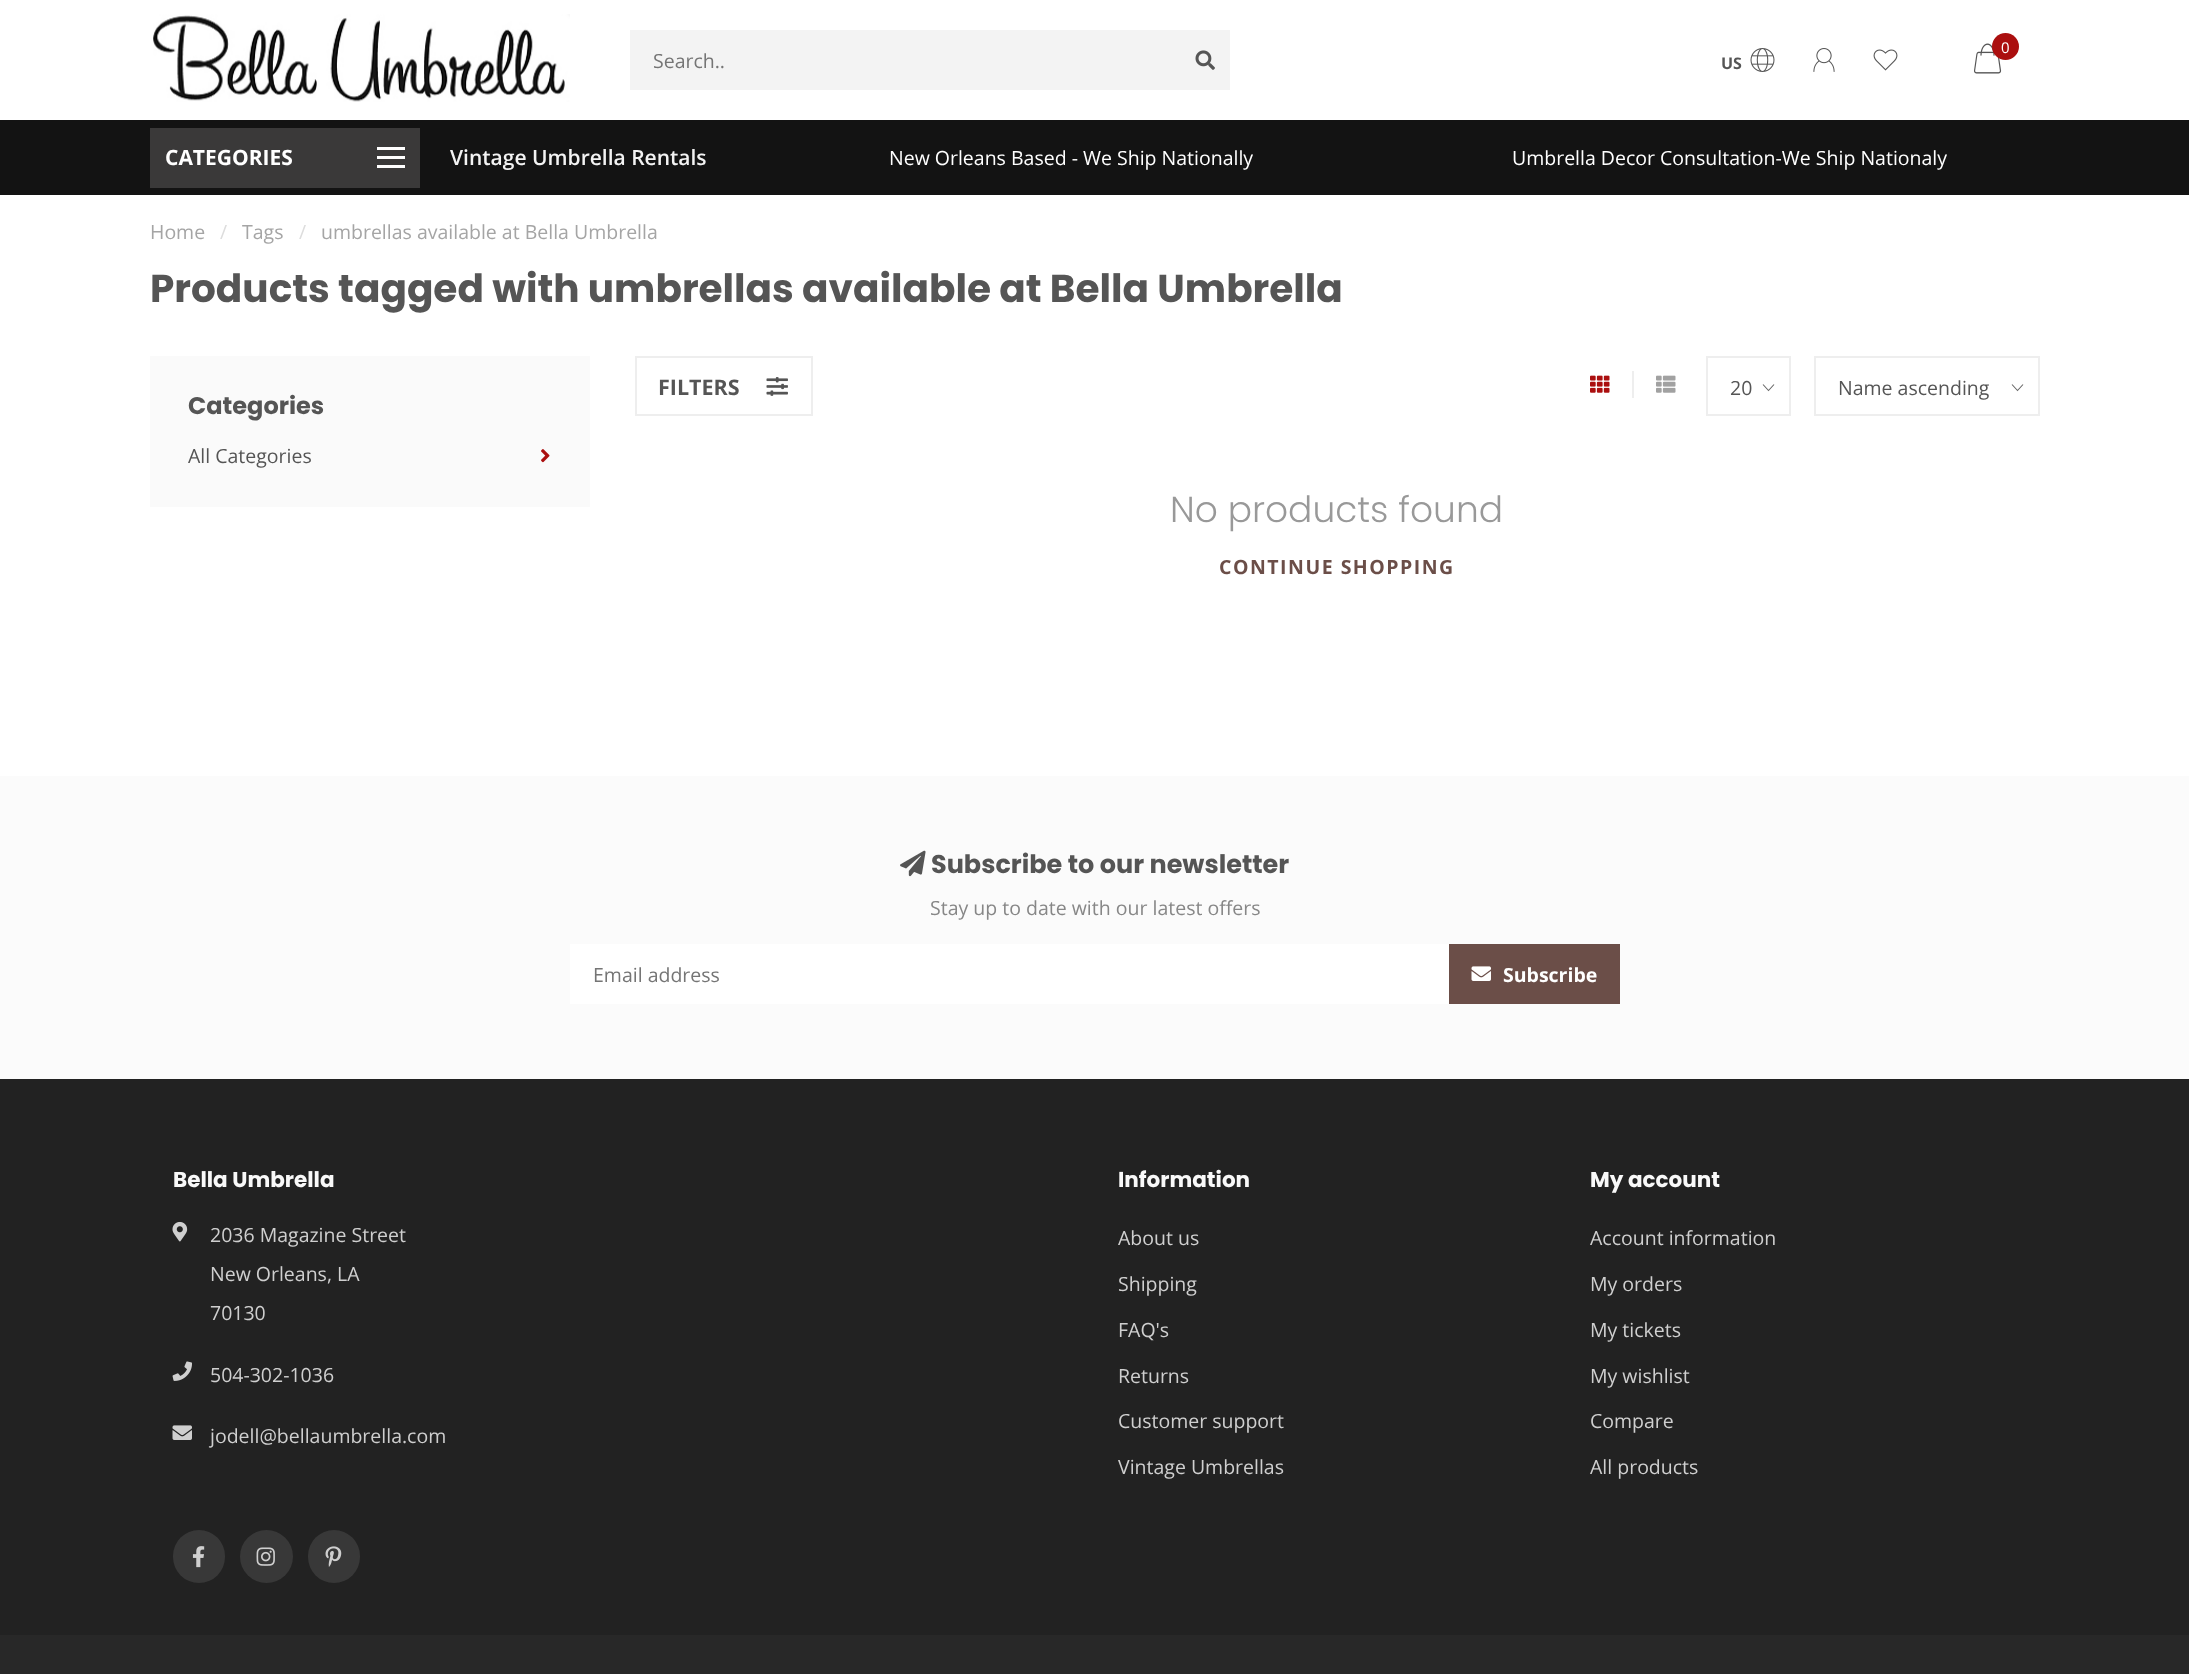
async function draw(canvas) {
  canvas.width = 2189;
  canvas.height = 1674;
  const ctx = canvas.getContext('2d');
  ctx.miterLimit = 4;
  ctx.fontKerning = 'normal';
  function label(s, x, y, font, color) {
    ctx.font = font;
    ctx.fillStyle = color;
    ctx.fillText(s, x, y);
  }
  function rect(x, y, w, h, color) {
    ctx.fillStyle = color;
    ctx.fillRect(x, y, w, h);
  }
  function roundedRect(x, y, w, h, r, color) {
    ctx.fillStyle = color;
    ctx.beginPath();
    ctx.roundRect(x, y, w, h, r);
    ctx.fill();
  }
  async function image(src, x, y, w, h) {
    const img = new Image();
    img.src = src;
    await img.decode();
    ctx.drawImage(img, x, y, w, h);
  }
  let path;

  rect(0, 0, 2189, 1674, '#fff');
  await image('assets/img1.png', 153, 14, 417, 88);
  rect(630, 30, 600, 60, '#f3f3f3');
  label('Search..', 653, 68, '19.5px Open Sans', '#757575');
  await image('assets/img2.png', 1195, 50, 20, 20);
  await image('assets/img3.png', 1974, 43, 28, 31);
  ctx.fillStyle = '#ab0f0f';
  ctx.beginPath();
  ctx.arc(2005.5, 46.5, 13.5, 0, 2 * Math.PI);
  ctx.fill();
  label('0', 2001, 53, '15px Open Sans', '#fff');
  label('US', 1721, 69, 'bold 16px Open Sans', '#555');
  await image('assets/img4.png', 1750, 48, 25, 24);
  await image('assets/img5.png', 1813, 48, 22, 24);
  await image('assets/img6.png', 1873, 49, 25, 22);
  rect(0, 120, 2189, 75, '#131313');
  rect(150, 128, 270, 60, '#3a3939');
  label('CATEGORIES', 165, 165, 'bold 21px Open Sans', '#fff');
  rect(377, 147, 28, 3, '#fff');
  rect(377, 156, 28, 3, '#fff');
  rect(377, 165, 28, 3, '#fff');
  label('Vintage Umbrella Rentals', 450, 165, '600 21px Open Sans', '#f3f3f3');
  label('New Orleans Based - We Ship Nationally', 889, 165, '19.5px Open Sans', '#fff');
  label('Umbrella Decor Consultation-We Ship Nationaly', 1512, 165, '19.5px Open Sans', '#fff');
  label('Home', 150, 239, '19.5px Open Sans', '#a5a5a5');
  label('/', 220, 239, '19.5px Open Sans', '#ddd');
  label('Tags', 242, 239, '19.5px Open Sans', '#a5a5a5');
  label('/', 299, 239, '19.5px Open Sans', '#ddd');
  label('umbrellas available at Bella Umbrella', 321, 239, '19.5px Open Sans', '#a5a5a5');
  label('Products tagged with umbrellas available at Bella Umbrella', 150, 302, 'bold 39px Poppins', '#555');
  rect(150, 356, 440, 151, '#fafafa');
  label('Categories', 188, 414, 'bold 24px Poppins', '#555');
  label('All Categories', 188, 463, '19.5px Open Sans', '#555');
  await image('assets/img7.png', 541, 449, 9, 14);
  ctx.strokeStyle = '#eee';
  ctx.lineWidth = 2;
  ctx.strokeRect(636, 357, 176, 58);
  label('FILTERS', 658, 395, 'bold 21.5px Open Sans', '#555');
  await image('assets/img8.png', 766, 377, 22, 19);
  rect(1632, 371, 2, 27, '#eee');
  await image('assets/img9.png', 1590, 375, 20, 18);
  await image('assets/img10.png', 1656, 375, 20, 18);
  path = new Path2D('M1774 384.5L1768.5 390.5L1763 384.5');
  ctx.strokeStyle = '#666';
  ctx.lineWidth = 1.1;
  ctx.stroke(path);
  ctx.strokeStyle = '#eee';
  ctx.lineWidth = 2;
  ctx.strokeRect(1707, 357, 83, 58);
  label('20', 1730, 395, '19.5px Open Sans', '#555');
  path = new Path2D('M2023 384.5L2017.5 390.5L2012 384.5');
  ctx.strokeStyle = '#666';
  ctx.lineWidth = 1.1;
  ctx.stroke(path);
  ctx.strokeStyle = '#eee';
  ctx.lineWidth = 2;
  ctx.strokeRect(1815, 357, 224, 58);
  label('Name ascending', 1838, 395, '19.5px Open Sans', '#555');
  label('No products found', 1170, 522, '300 36px Poppins', '#999');
  ctx.letterSpacing = '1.5px';
  label('CONTINUE SHOPPING', 1219, 574, 'bold 19.5px Open Sans', '#6b4e48');
  rect(0, 776, 2189, 303, '#fbfbfb');
  await image('assets/img11.png', 900, 850, 26, 27);
  ctx.letterSpacing = '0px';
  label('Subscribe to our newsletter', 931, 873, 'bold 25.5px Poppins', '#555');
  label('Stay up to date with our latest offers', 930, 915, '19.5px Open Sans', '#878787');
  rect(570, 944, 879, 60, '#fff');
  label('Email address', 593, 982, '19.5px Open Sans', '#757575');
  rect(1449, 944, 171, 60, '#6b4e48');
  await image('assets/img12.png', 1471, 966, 20, 15);
  label('Subscribe', 1503, 982, 'bold 19.5px Open Sans', '#fff');
  rect(0, 1079, 2189, 556, '#222');
  label('Bella Umbrella', 173, 1187, 'bold 21.5px Poppins', '#f9f9f9');
  await image('assets/img13.png', 172, 1221, 16, 21);
  label('2036 Magazine Street', 210, 1242, '19.5px Open Sans', '#cfcfcf');
  label('New Orleans, LA', 210, 1281, '19.5px Open Sans', '#cfcfcf');
  label('70130', 210, 1320, '19.5px Open Sans', '#cfcfcf');
  await image('assets/img14.png', 172, 1361, 20, 20);
  label('504-302-1036', 210, 1382, '19.5px Open Sans', '#cfcfcf');
  await image('assets/img15.png', 172, 1425, 20, 15);
  label('jodell@bellaumbrella.com', 210, 1443, '19.5px Open Sans', '#cfcfcf');
  roundedRect(173, 1530, 52, 53, 26, '#383838');
  await image('assets/img16.png', 192, 1546, 13, 22);
  ctx.beginPath();
  ctx.arc(266.5, 1556.5, 26.5, 0, 2 * Math.PI);
  ctx.fill();
  await image('assets/img17.png', 256, 1547, 19, 19);
  roundedRect(308, 1530, 52, 53, 26, '#383838');
  await image('assets/img18.png', 325, 1546, 17, 21);
  label('Information', 1118, 1187, 'bold 21.5px Poppins', '#f9f9f9');
  label('About us', 1118, 1245, '19.5px Open Sans', '#cfcfcf');
  label('Shipping', 1118, 1291, '19.5px Open Sans', '#cfcfcf');
  label('FAQ\'s', 1118, 1337, '19.5px Open Sans', '#cfcfcf');
  label('Returns', 1118, 1383, '19.5px Open Sans', '#cfcfcf');
  label('Customer support', 1118, 1428, '19.5px Open Sans', '#cfcfcf');
  label('Vintage Umbrellas', 1118, 1474, '19.5px Open Sans', '#cfcfcf');
  label('My account', 1590, 1187, 'bold 21.5px Poppins', '#f9f9f9');
  label('Account information', 1590, 1245, '19.5px Open Sans', '#cfcfcf');
  label('My orders', 1590, 1291, '19.5px Open Sans', '#cfcfcf');
  label('My tickets', 1590, 1337, '19.5px Open Sans', '#cfcfcf');
  label('My wishlist', 1590, 1383, '19.5px Open Sans', '#cfcfcf');
  label('Compare', 1590, 1428, '19.5px Open Sans', '#cfcfcf');
  label('All products', 1590, 1474, '19.5px Open Sans', '#cfcfcf');
  rect(0, 1635, 2189, 39, '#282828');
}

draw(document.querySelector('canvas'));
